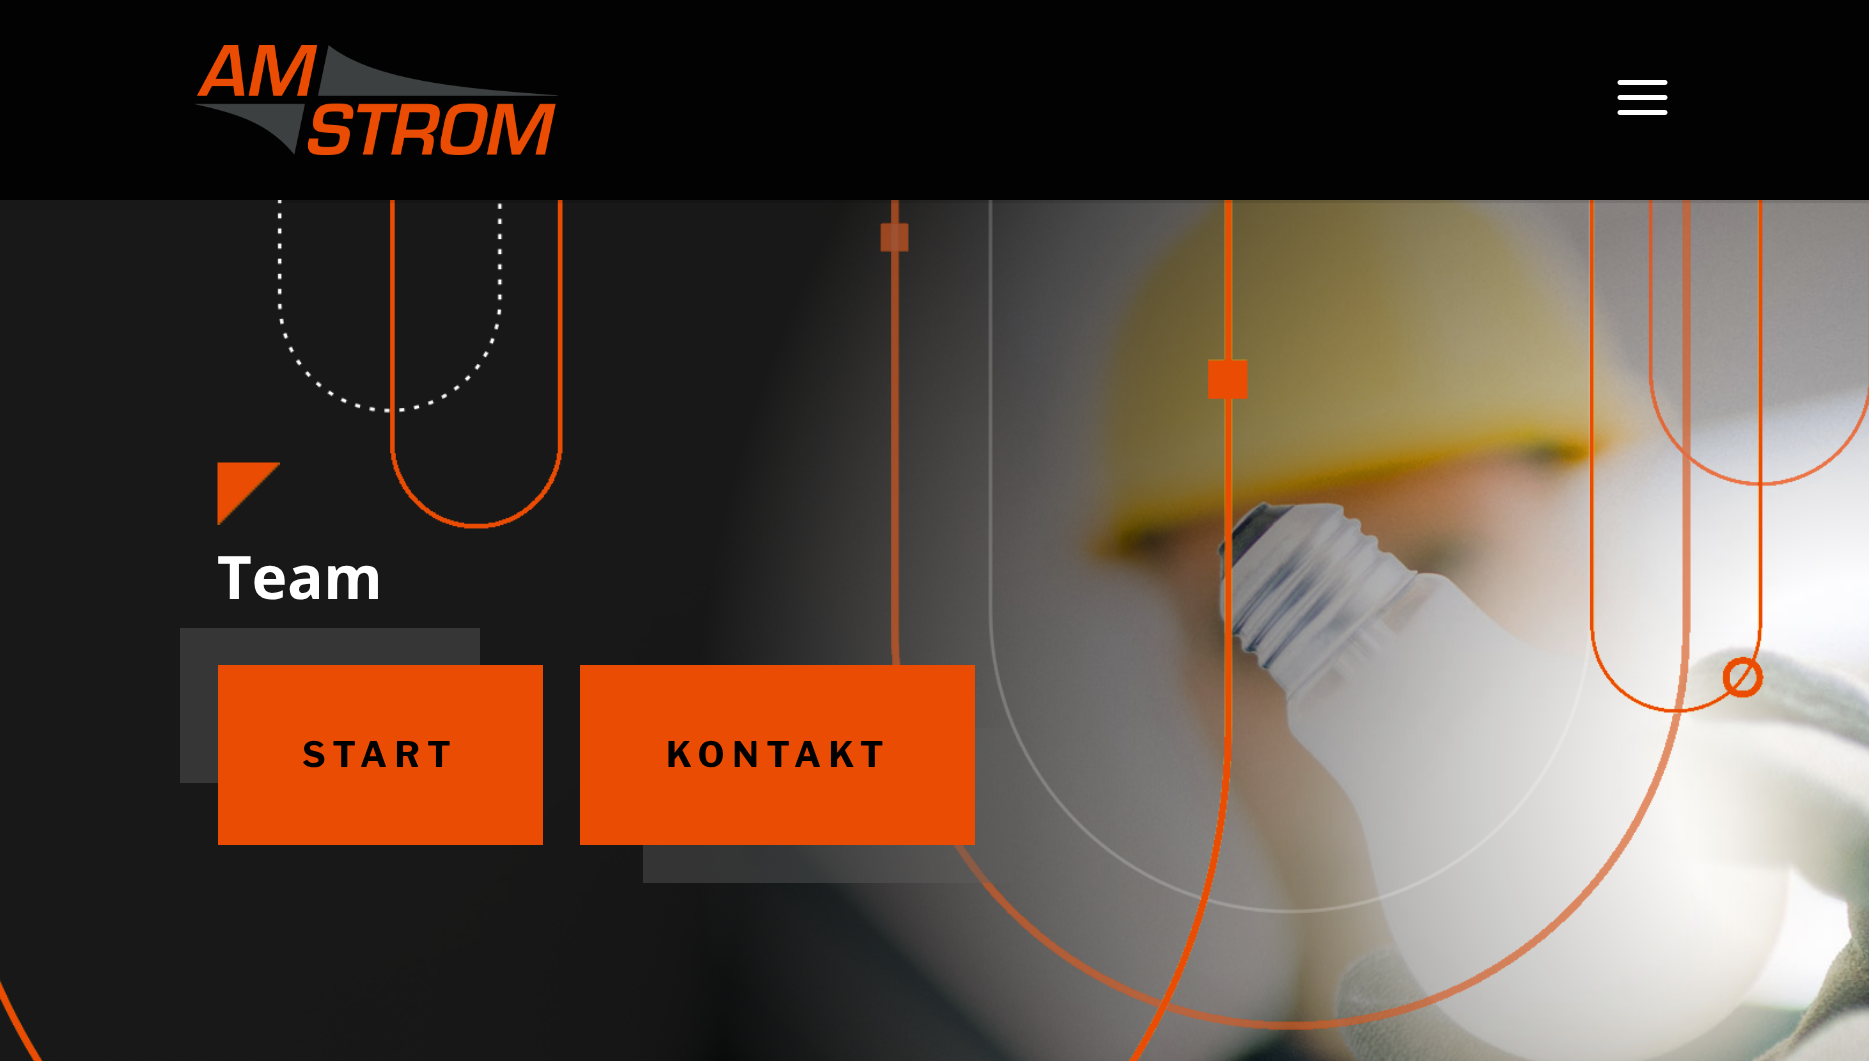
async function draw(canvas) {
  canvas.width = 1869;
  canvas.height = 1061;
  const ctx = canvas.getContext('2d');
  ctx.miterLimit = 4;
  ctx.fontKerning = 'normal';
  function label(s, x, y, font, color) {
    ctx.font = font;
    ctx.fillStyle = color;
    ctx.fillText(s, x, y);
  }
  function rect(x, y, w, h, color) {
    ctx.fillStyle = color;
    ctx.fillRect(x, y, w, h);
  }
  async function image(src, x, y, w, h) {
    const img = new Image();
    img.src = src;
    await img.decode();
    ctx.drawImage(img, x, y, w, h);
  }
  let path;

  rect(0, 0, 1869, 1061, '#fff');
  await image('assets/img3.png', 0, 200, 1869, 861);
  await image('assets/img4.png', 0, 200, 1869, 861);
  rect(277, 200, 1592, 3, '#0000001a');
  rect(0, 0, 1869, 200, '#020202');
  await image('assets/img1.png', 195, 45, 363, 110);
  await image('assets/img2.png', 1617, 80, 51, 35);
  await image('assets/img5.png', 217, 462, 63, 63);
  label('Team', 217, 599, 'bold 60px Open Sans', '#fff');
  ctx.fillStyle = '#363636';
  path = new Path2D('M180 628V783H218V665H480V628Z');
  ctx.fill(path);
  rect(218, 665, 325, 180, '#eb4c03');
  ctx.letterSpacing = '7.5px';
  label('START', 302, 767, '100 35px Libre Franklin', '#000');
  ctx.fillStyle = '#6060606b';
  path = new Path2D('M643 845V883H1013V728H975V845Z');
  ctx.fill(path);
  rect(580, 665, 395, 180, '#eb4c03');
  label('KONTAKT', 666, 767, '100 35px Libre Franklin', '#000');
}

draw(document.querySelector('canvas'));
